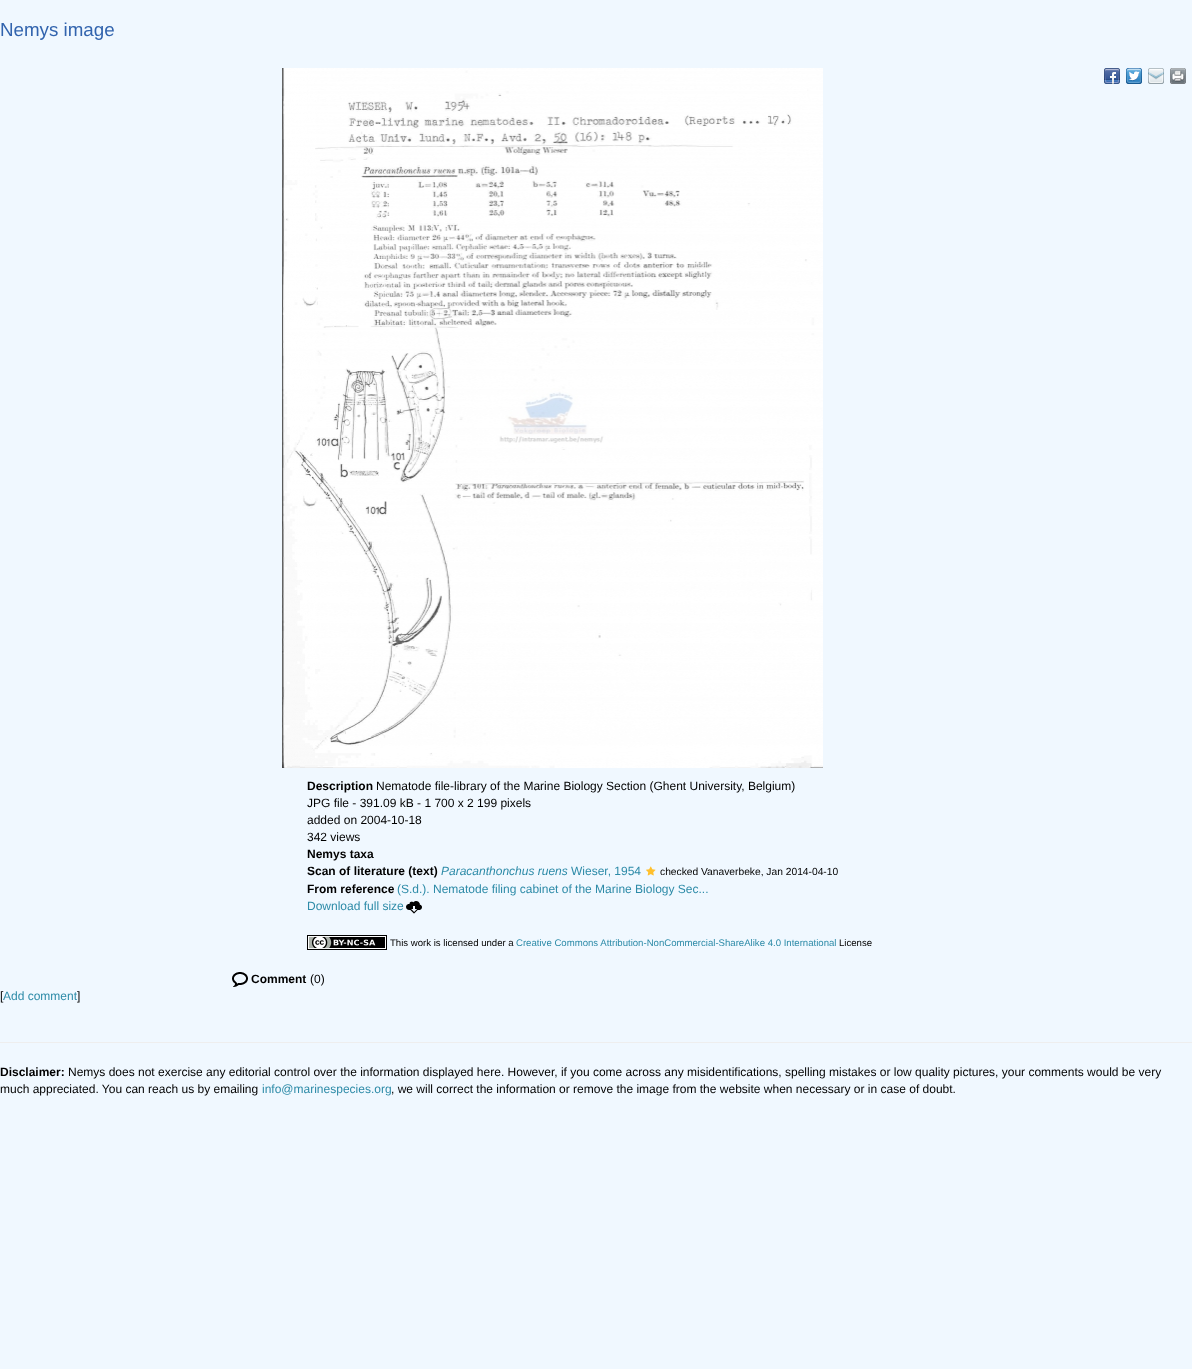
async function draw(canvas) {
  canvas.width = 1192;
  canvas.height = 1369;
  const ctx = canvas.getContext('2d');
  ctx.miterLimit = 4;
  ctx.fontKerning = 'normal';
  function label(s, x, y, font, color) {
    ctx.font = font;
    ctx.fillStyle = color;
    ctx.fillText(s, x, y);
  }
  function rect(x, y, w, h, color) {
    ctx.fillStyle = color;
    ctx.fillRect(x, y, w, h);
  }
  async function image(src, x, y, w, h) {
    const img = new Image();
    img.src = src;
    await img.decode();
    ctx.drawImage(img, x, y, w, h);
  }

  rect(0, 0, 1192, 1369, '#f0f8ff');
  label('Nemys image', 0, 36, '18.75px Liberation Sans', '#3264ae');
  await image('assets/img1.png', 1104, 68, 16, 16);
  await image('assets/img2.png', 1126, 68, 16, 16);
  await image('assets/img3.png', 1148, 68, 16, 16);
  await image('assets/img4.png', 1170, 68, 16, 16);
  await image('assets/img5.png', 282, 68, 541, 700);
  label('Description', 307, 790, 'bold 12px Liberation Sans', '#000');
  label('Nematode file-library of the Marine Biology Section (Ghent University, Belgium)', 376, 790, '12px Liberation Sans', '#000');
  label('JPG file - 391.09 kB - 1 700 x 2 199 pixels', 307, 807, '12px Liberation Sans', '#000');
  label('added on 2004-10-18', 307, 824, '12px Liberation Sans', '#000');
  label('342 views', 307, 841, '12px Liberation Sans', '#000');
  label('Nemys taxa', 307, 858, 'bold 12px Liberation Sans', '#000');
  label('Scan of literature (text)', 307, 875, 'bold 12px Liberation Sans', '#000');
  label('Paracanthonchus ruens', 441, 875, 'italic 12px Liberation Sans', '#2d8ba8');
  label('Wieser, 1954', 571, 875, '12px Liberation Sans', '#2d8ba8');
  await image('assets/img6.png', 646, 866, 10, 10);
  label('checked Vanaverbeke, Jan 2014-04-10', 660, 875, '10.25px Liberation Sans', '#000');
  label('From reference', 307, 893, 'bold 12px Liberation Sans', '#000');
  label('(S.d.). Nematode filing cabinet of the Marine Biology Sec...', 397, 893, '12px Liberation Sans', '#2d8ba8');
  label('Download full size', 307, 910, '12px Liberation Sans', '#2d8ba8');
  await image('assets/img7.png', 406, 901, 16, 13);
  await image('assets/img8.png', 307, 935, 80, 15);
  label('This work is licensed under a', 390, 946, '9.6px Liberation Sans', '#000');
  label('Creative Commons Attribution-NonCommercial-ShareAlike 4.0 International', 516, 946, '9.6px Liberation Sans', '#2d8ba8');
  label('License', 839, 946, '9.6px Liberation Sans', '#000');
  await image('assets/img9.png', 232, 972, 16, 15);
  label('Comment', 251, 983, 'bold 12px Liberation Sans', '#000');
  label('(0)', 310, 983, '12px Liberation Sans', '#000');
  label('[', 0, 1000, '12px Liberation Sans', '#000');
  label('Add comment', 3, 1000, '12px Liberation Sans', '#2d8ba8');
  label(']', 77, 1000, '12px Liberation Sans', '#000');
  rect(0, 1042, 1192, 1, '#eee');
  label('Disclaimer:', 0, 1076, 'bold 12px Liberation Sans', '#000');
  label('Nemys does not exercise any editorial control over the information displayed here. However, if you come across any misidentifications, spelling mistakes or low quality pictures, your comments would be very', 68, 1076, '12px Liberation Sans', '#000');
  label('much appreciated. You can reach us by emailing', 0, 1093, '12px Liberation Sans', '#000');
  label('info@marinespecies.org', 262, 1093, '12px Liberation Sans', '#2d8ba8');
  label(', we will correct the information or remove the image from the website when necessary or in case of doubt.', 391, 1093, '12px Liberation Sans', '#000');
}

draw(document.querySelector('canvas'));
